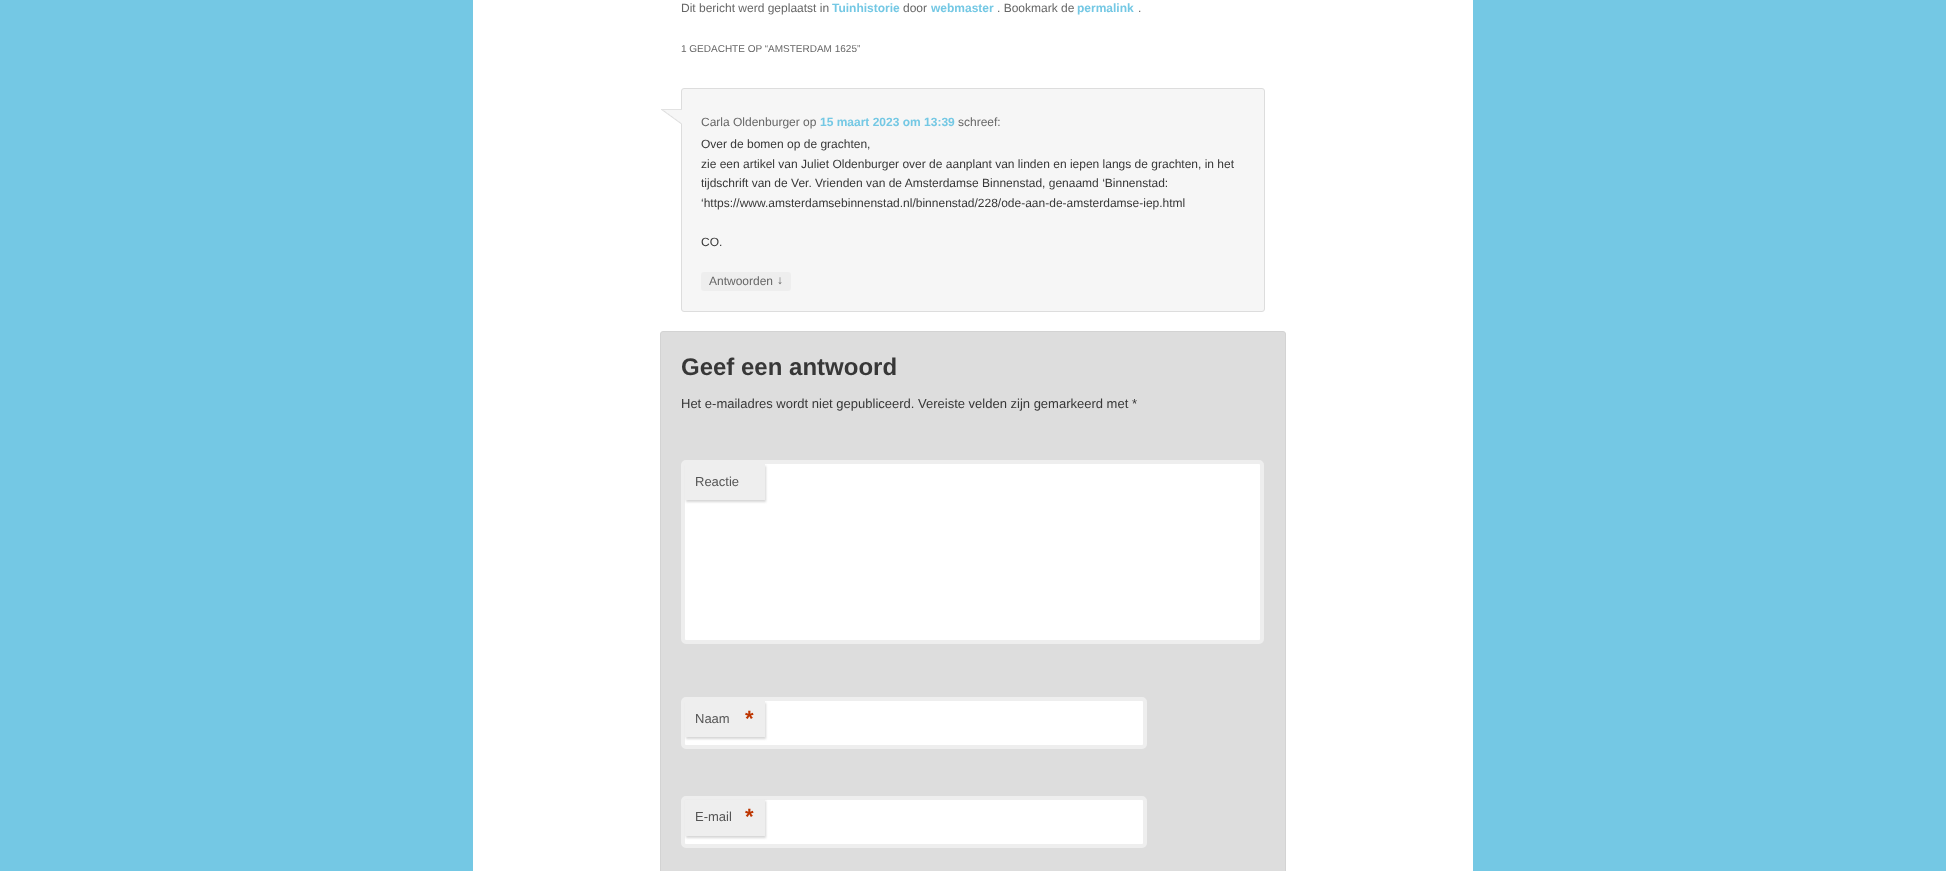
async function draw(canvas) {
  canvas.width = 1946;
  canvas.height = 871;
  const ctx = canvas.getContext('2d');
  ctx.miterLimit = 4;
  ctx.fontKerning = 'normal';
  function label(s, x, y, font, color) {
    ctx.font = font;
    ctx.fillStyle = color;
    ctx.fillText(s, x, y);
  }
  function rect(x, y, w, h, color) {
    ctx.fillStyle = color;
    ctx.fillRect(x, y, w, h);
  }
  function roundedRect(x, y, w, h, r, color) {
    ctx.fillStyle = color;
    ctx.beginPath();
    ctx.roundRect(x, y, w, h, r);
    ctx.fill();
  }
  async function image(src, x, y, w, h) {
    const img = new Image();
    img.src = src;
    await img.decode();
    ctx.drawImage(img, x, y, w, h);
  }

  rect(0, 0, 1946, 871, '#74c8e4');
  rect(473, 0, 1000, 871, '#fff');
  label('Dit bericht werd geplaatst in', 681, 12, '12px Liberation Sans', '#666');
  label('Tuinhistorie', 832, 12, 'bold 12px Liberation Sans', '#74c8e4');
  label('door', 903, 12, '12px Liberation Sans', '#666');
  label('webmaster', 931, 12, 'bold 12px Liberation Sans', '#74c8e4');
  label('. Bookmark de', 997, 12, '12px Liberation Sans', '#666');
  label('permalink', 1077, 12, 'bold 12px Liberation Sans', '#74c8e4');
  label('.', 1138, 12, '12px Liberation Sans', '#666');
  label('1 GEDACHTE OP “AMSTERDAM 1625”', 681, 52, '10px Liberation Sans', '#666');
  ctx.fillStyle = '#f6f6f6';
  ctx.beginPath();
  ctx.roundRect(681.5, 88.5, 583, 223, 2.5);
  ctx.fill();
  ctx.strokeStyle = '#ddd';
  ctx.stroke();
  await image('assets/img1.png', 661, 109, 21, 15);
  label('Carla Oldenburger op', 701, 126, '12px Liberation Sans', '#666');
  label('15 maart 2023 om 13:39', 820, 126, 'bold 12px Liberation Sans', '#74c8e4');
  label('schreef:', 958, 126, '12px Liberation Sans', '#666');
  label('Over de bomen op de grachten,', 701, 148, '12px Liberation Sans', '#373737');
  label('zie een artikel van Juliet Oldenburger over de aanplant van linden en iepen langs de grachten, in het', 701, 168, '12px Liberation Sans', '#373737');
  label('tijdschrift van de Ver. Vrienden van de Amsterdamse Binnenstad, genaamd ‘Binnenstad:', 701, 187, '12px Liberation Sans', '#373737');
  label('‘https://www.amsterdamsebinnenstad.nl/binnenstad/228/ode-aan-de-amsterdamse-iep.html', 701, 207, '12px Liberation Sans', '#373737');
  label('CO.', 701, 246, '12px Liberation Sans', '#373737');
  roundedRect(701, 272, 90, 19, 3, '#eee');
  label('Antwoorden', 709, 285, '12px Liberation Sans', '#666');
  label('↓', 777, 284, '12px Liberation Sans', '#666');
  ctx.fillStyle = '#ddd';
  ctx.beginPath();
  ctx.roundRect(660.5, 331.5, 625, 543, 2.5);
  ctx.fill();
  ctx.strokeStyle = '#d3d3d3';
  ctx.stroke();
  label('Geef een antwoord', 681, 375, 'bold 24px Liberation Sans', '#373737');
  label('Het e-mailadres wordt niet gepubliceerd. Vereiste velden zijn gemarkeerd met *', 681, 408, '13px Liberation Sans', '#373737');
  ctx.fillStyle = '#fff';
  ctx.beginPath();
  ctx.roundRect(683, 462, 579, 180, 3);
  ctx.fill();
  ctx.strokeStyle = '#eee';
  ctx.lineWidth = 4;
  ctx.stroke();
  ctx.fillStyle = '#cccccccc';
  ctx.filter = 'blur(1px)';
  ctx.beginPath();
  ctx.rect(686, 466, 80, 36);
  ctx.fill();
  ctx.filter = 'none';
  rect(685, 464, 80, 36, '#eee');
  label('Reactie', 695, 486, '13px Liberation Sans', '#555');
  ctx.fillStyle = '#fff';
  ctx.beginPath();
  ctx.roundRect(683, 699, 462, 48, 3);
  ctx.fill();
  ctx.stroke();
  ctx.fillStyle = '#cccccccc';
  ctx.filter = 'blur(1px)';
  ctx.beginPath();
  ctx.rect(686, 703, 80, 36);
  ctx.fill();
  ctx.filter = 'none';
  rect(685, 701, 80, 36, '#eee');
  label('Naam', 695, 723, '13px Liberation Sans', '#555');
  label('*', 745, 726, 'bold 22px Liberation Sans', '#bd3500');
  ctx.fillStyle = '#fff';
  ctx.beginPath();
  ctx.roundRect(683, 798, 462, 48, 3);
  ctx.fill();
  ctx.stroke();
  ctx.fillStyle = '#cccccccc';
  ctx.filter = 'blur(1px)';
  ctx.beginPath();
  ctx.rect(686, 801, 80, 37);
  ctx.fill();
  ctx.filter = 'none';
  rect(685, 800, 80, 36, '#eee');
  label('E-mail', 695, 821, '13px Liberation Sans', '#555');
  label('*', 745, 824, 'bold 22px Liberation Sans', '#bd3500');
}

draw(document.querySelector('canvas'));
